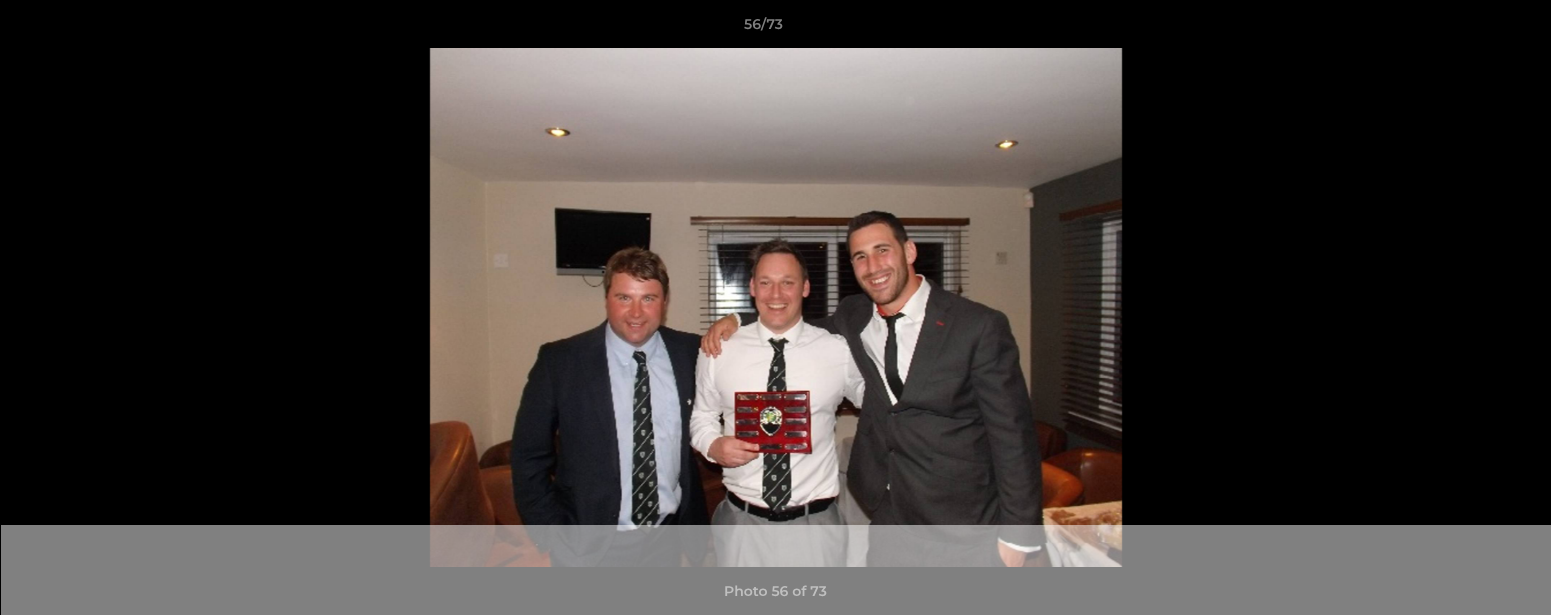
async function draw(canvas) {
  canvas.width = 1551;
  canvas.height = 615;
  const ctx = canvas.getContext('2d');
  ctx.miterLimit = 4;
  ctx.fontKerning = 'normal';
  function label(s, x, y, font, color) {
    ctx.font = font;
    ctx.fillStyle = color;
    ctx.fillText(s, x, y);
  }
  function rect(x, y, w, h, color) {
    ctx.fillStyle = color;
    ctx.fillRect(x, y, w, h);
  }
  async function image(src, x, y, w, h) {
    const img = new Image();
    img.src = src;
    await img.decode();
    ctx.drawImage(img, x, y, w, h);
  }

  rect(0, 0, 1551, 615, '#000');
  label('56/73', 744, 29, '600 14px Montserrat', '#808080');
  await image('assets/img1.png', 429, 48, 694, 519);
  label('Photo 56 of 73', 724, 596, '600 14px Montserrat', '#808080');
  rect(1, 525, 1550, 90, '#ffffff80');
}

draw(document.querySelector('canvas'));
